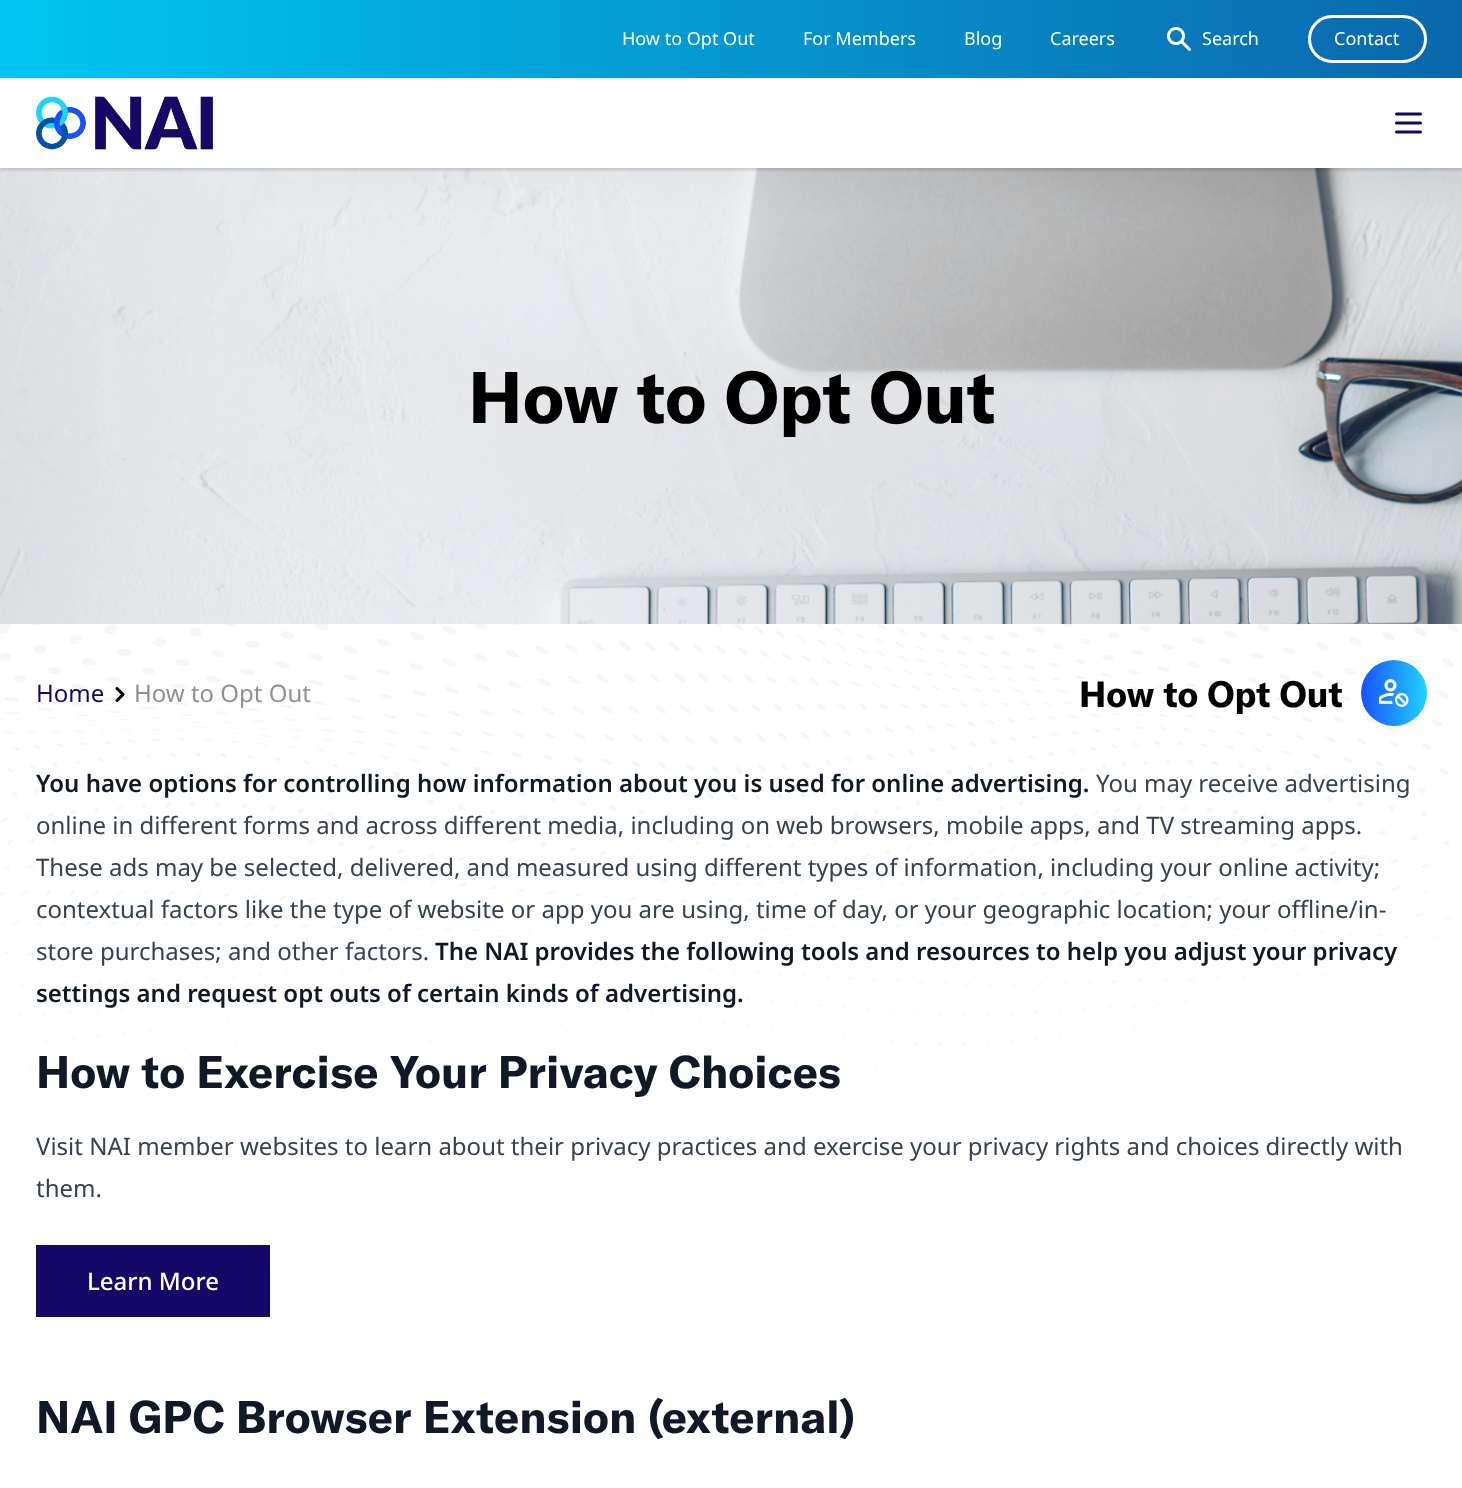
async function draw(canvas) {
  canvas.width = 1462;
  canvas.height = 1488;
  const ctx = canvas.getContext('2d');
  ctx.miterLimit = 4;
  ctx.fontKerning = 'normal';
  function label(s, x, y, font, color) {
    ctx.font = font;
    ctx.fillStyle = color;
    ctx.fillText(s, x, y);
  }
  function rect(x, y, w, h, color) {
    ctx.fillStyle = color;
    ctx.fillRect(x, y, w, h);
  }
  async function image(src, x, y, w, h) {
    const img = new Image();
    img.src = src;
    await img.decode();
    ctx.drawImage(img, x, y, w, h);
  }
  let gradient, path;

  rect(0, 0, 1462, 1488, '#fff');
  gradient = ctx.createLinearGradient(0, 78, 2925, 78);
  gradient.addColorStop(0, '#00c6f2');
  gradient.addColorStop(1, '#160866');
  ctx.fillStyle = gradient;
  ctx.fillRect(0, 0, 1462, 78);
  label('How to Opt Out', 622, 45, '18px Noto Sans', '#fff');
  label('For Members', 803, 45, '18px Noto Sans', '#fff');
  label('Blog', 964, 45, '18px Noto Sans', '#fff');
  label('Careers', 1050, 45, '18px Noto Sans', '#fff');
  await image('assets/img1.png', 1167, 27, 24, 24);
  label('Search', 1202, 45, '18px Noto Sans', '#fff');
  ctx.beginPath();
  ctx.roundRect(1309.5, 16.5, 116, 45, 22.5);
  ctx.strokeStyle = '#fff';
  ctx.lineWidth = 3;
  ctx.stroke();
  label('Contact', 1334, 45, '18px Noto Sans', '#fff');
  await image('assets/img3.png', 0, 168, 1462, 456);
  ctx.save();
  ctx.beginPath();
  ctx.rect(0, 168, 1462, 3);
  ctx.clip();
  ctx.fillStyle = '#0000000f';
  ctx.filter = 'blur(1.5px)';
  ctx.beginPath();
  ctx.rect(0, 80, 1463, 90);
  ctx.fill();
  ctx.filter = 'none';
  ctx.restore();
  ctx.save();
  ctx.beginPath();
  ctx.rect(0, 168, 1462, 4);
  ctx.clip();
  ctx.fillStyle = '#0000001a';
  ctx.filter = 'blur(2px)';
  ctx.beginPath();
  ctx.rect(0, 80, 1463, 90);
  ctx.fill();
  ctx.filter = 'none';
  ctx.restore();
  await image('assets/img2.png', 36, 96, 177, 54);
  path = new Path2D('M1396.5 114H1420.5M1396.5 123H1420.5M1396.5 132H1420.5');
  ctx.strokeStyle = '#160866';
  ctx.lineCap = 'round';
  ctx.lineJoin = 'round';
  ctx.stroke(path);
  label('How to Opt Out', 468, 423, 'bold 72px GT America', '#000');
  await image('assets/img4.png', 0, 624, 1459, 476);
  label('Home', 36, 702, '24px Noto Sans', '#160866');
  await image('assets/img5.png', 115, 687, 10, 15);
  label('How to Opt Out', 134, 702, '24px Noto Sans', '#909090');
  label('How to Opt Out', 1079, 707, 'bold 36px GT America', '#000');
  gradient = ctx.createLinearGradient(1361, 693, 1427, 693);
  gradient.addColorStop(0, '#1851ff');
  gradient.addColorStop(1, '#20d3ff');
  ctx.fillStyle = gradient;
  ctx.beginPath();
  ctx.arc(1394, 693, 33, 0, 2 * Math.PI);
  ctx.fill();
  await image('assets/img6.png', 1379, 679, 30, 28);
  label('You have options for controlling how information about you is used for online advertising.', 36, 792, '600 24px Noto Sans', '#111827');
  label('You may receive advertising', 1096, 792, '24px Noto Sans', '#374151');
  label('online in different forms and across different media, including on web browsers, mobile apps, and TV streaming apps.', 36, 834, '24px Noto Sans', '#374151');
  label('These ads may be selected, delivered, and measured using different types of information, including your online activity;', 36, 876, '24px Noto Sans', '#374151');
  label('contextual factors like the type of website or app you are using, time of day, or your geographic location; your offline/in-', 36, 918, '24px Noto Sans', '#374151');
  label('store purchases; and other factors.', 36, 960, '24px Noto Sans', '#374151');
  label('The NAI provides the following tools and resources to help you adjust your privacy', 435, 960, '600 24px Noto Sans', '#111827');
  label('settings and request opt outs of certain kinds of advertising.', 36, 1002, '600 24px Noto Sans', '#111827');
  label('How to Exercise Your Privacy Choices', 36, 1088, 'bold 45px GT America', '#111827');
  label('Visit NAI member websites to learn about their privacy practices and exercise your privacy rights and choices directly with', 36, 1155, '24px Noto Sans', '#374151');
  label('them.', 36, 1197, '24px Noto Sans', '#374151');
  rect(36, 1245, 234, 72, '#160866');
  label('Learn More', 87, 1290, '500 24px Noto Sans', '#fff');
  label('NAI GPC Browser Extension (external)', 36, 1433, 'bold 45px GT America', '#111827');
}

draw(document.querySelector('canvas'));
